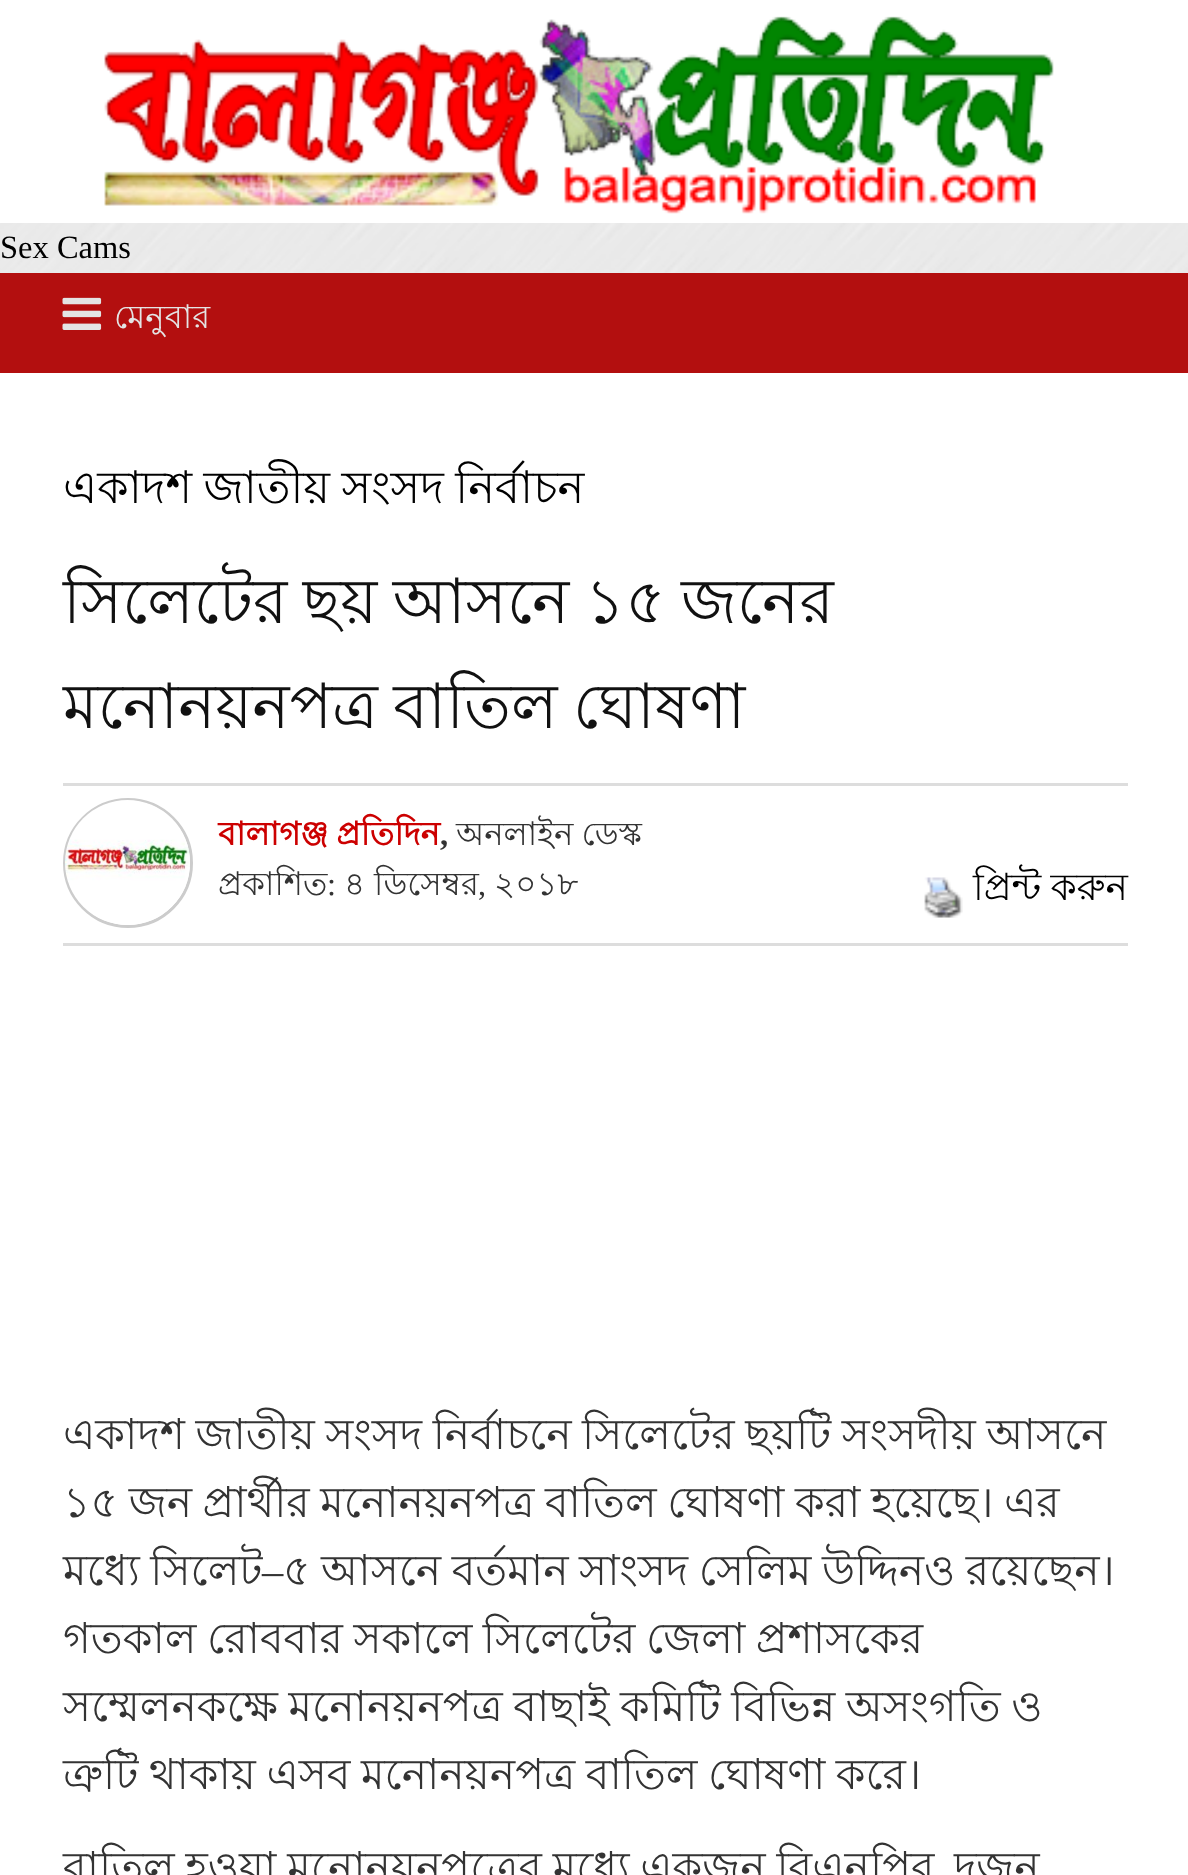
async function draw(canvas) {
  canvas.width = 1188;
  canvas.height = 1875;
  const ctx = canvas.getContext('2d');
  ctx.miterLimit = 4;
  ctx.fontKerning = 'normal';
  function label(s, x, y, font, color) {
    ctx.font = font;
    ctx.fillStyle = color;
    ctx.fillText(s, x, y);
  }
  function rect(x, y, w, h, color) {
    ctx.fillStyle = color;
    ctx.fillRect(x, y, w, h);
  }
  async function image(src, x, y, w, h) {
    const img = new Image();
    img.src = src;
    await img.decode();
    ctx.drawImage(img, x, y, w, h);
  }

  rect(0, 0, 1188, 1875, '#fff');
  await image('assets/img1.png', 0, 223, 1188, 50);
  await image('assets/img2.png', 104, 16, 950, 198);
  label('Sex Cams', 0, 258, '32.5px Liberation Serif', '#000');
  rect(0, 273, 1188, 100, '#b30f0f');
  await image('assets/img3.png', 62, 297, 40, 33);
  label('মেনুবার', 114, 328, '32.5px Lohit Bengali', '#e4e4e4');
  ctx.wordSpacing = '-1px';
  label('একাদশ জাতীয় সংসদ নির্বাচন', 63, 503, '45px Lohit Bengali', '#000');
  ctx.wordSpacing = '-2px';
  label('সিলেটের ছয় আসনে ১৫ জনের', 63, 623, '62.5px Lohit Bengali', '#111');
  label('মনোনয়নপত্র বাতিল ঘোষণা', 63, 728, '62.5px Lohit Bengali', '#111');
  rect(63, 783, 1065, 3, '#ddd');
  ctx.beginPath();
  ctx.arc(128, 863, 63.5, 0, 2 * Math.PI);
  ctx.strokeStyle = '#ccc';
  ctx.lineWidth = 3;
  ctx.stroke();
  await image('assets/img4.png', 65, 800, 125, 125);
  ctx.wordSpacing = '-1px';
  label('বালাগঞ্জ প্রতিদিন', 218, 845, 'bold 32.5px Lohit Bengali', '#c00');
  ctx.wordSpacing = '0px';
  label(',', 440, 845, 'bold 32.5px Liberation Serif', '#333');
  ctx.wordSpacing = '-1px';
  label('অনলাইন ডেস্ক', 456, 845, '32.5px Lohit Bengali', '#333');
  ctx.wordSpacing = '0px';
  label('প্রকাশিত', 218, 895, '32.5px Lohit Bengali', '#333');
  label(':', 327, 895, '32.5px Liberation Serif', '#333');
  label('৪ ডিসেম্বর', 344, 895, '32.5px Lohit Bengali', '#333');
  label(',', 478, 895, '32.5px Liberation Serif', '#333');
  label('২০১৮', 494, 895, '32.5px Lohit Bengali', '#333');
  await image('assets/img5.png', 924, 877, 39, 41);
  ctx.wordSpacing = '-1px';
  label('প্রিন্ট করুন', 973, 900, '37.5px Lohit Bengali', '#000');
  rect(63, 943, 1065, 3, '#ddd');
  ctx.wordSpacing = '-1.25px';
  label('একাদশ জাতীয় সংসদ নির্বাচনে সিলেটের ছয়টি সংসদীয় আসনে', 63, 1449, '42.5px Lohit Bengali', '#333');
  label('১৫ জন প্রার্থীর মনোনয়নপত্র বাতিল ঘোষণা করা হয়েছে। এর', 63, 1517, '42.5px Lohit Bengali', '#333');
  label('মধ্যে সিলেট', 63, 1585, '42.5px Lohit Bengali', '#333');
  ctx.wordSpacing = '0px';
  label('–', 262, 1585, '42.5px Liberation Serif', '#333');
  ctx.wordSpacing = '-1.25px';
  label('৫ আসনে বর্তমান সাংসদ সেলিম উদ্দিনও রয়েছেন।', 283, 1585, '42.5px Lohit Bengali', '#333');
  label('গতকাল রোববার সকালে সিলেটের জেলা প্রশাসকের', 63, 1653, '42.5px Lohit Bengali', '#333');
  label('সম্মেলনকক্ষে মনোনয়নপত্র বাছাই কমিটি বিভিন্ন অসংগতি ও', 63, 1721, '42.5px Lohit Bengali', '#333');
  label('ত্রুটি থাকায় এসব মনোনয়নপত্র বাতিল ঘোষণা করে।', 63, 1789, '42.5px Lohit Bengali', '#333');
  ctx.wordSpacing = '-1px';
  label('বাতিল হওয়া মনোনয়নপত্রের মধ্যে একজন বিএনপির', 63, 1882, '42.5px Lohit Bengali', '#333');
  ctx.wordSpacing = '0px';
  label('দুজন', 954, 1882, '42.5px Lohit Bengali', '#333');
}

draw(document.querySelector('canvas'));
